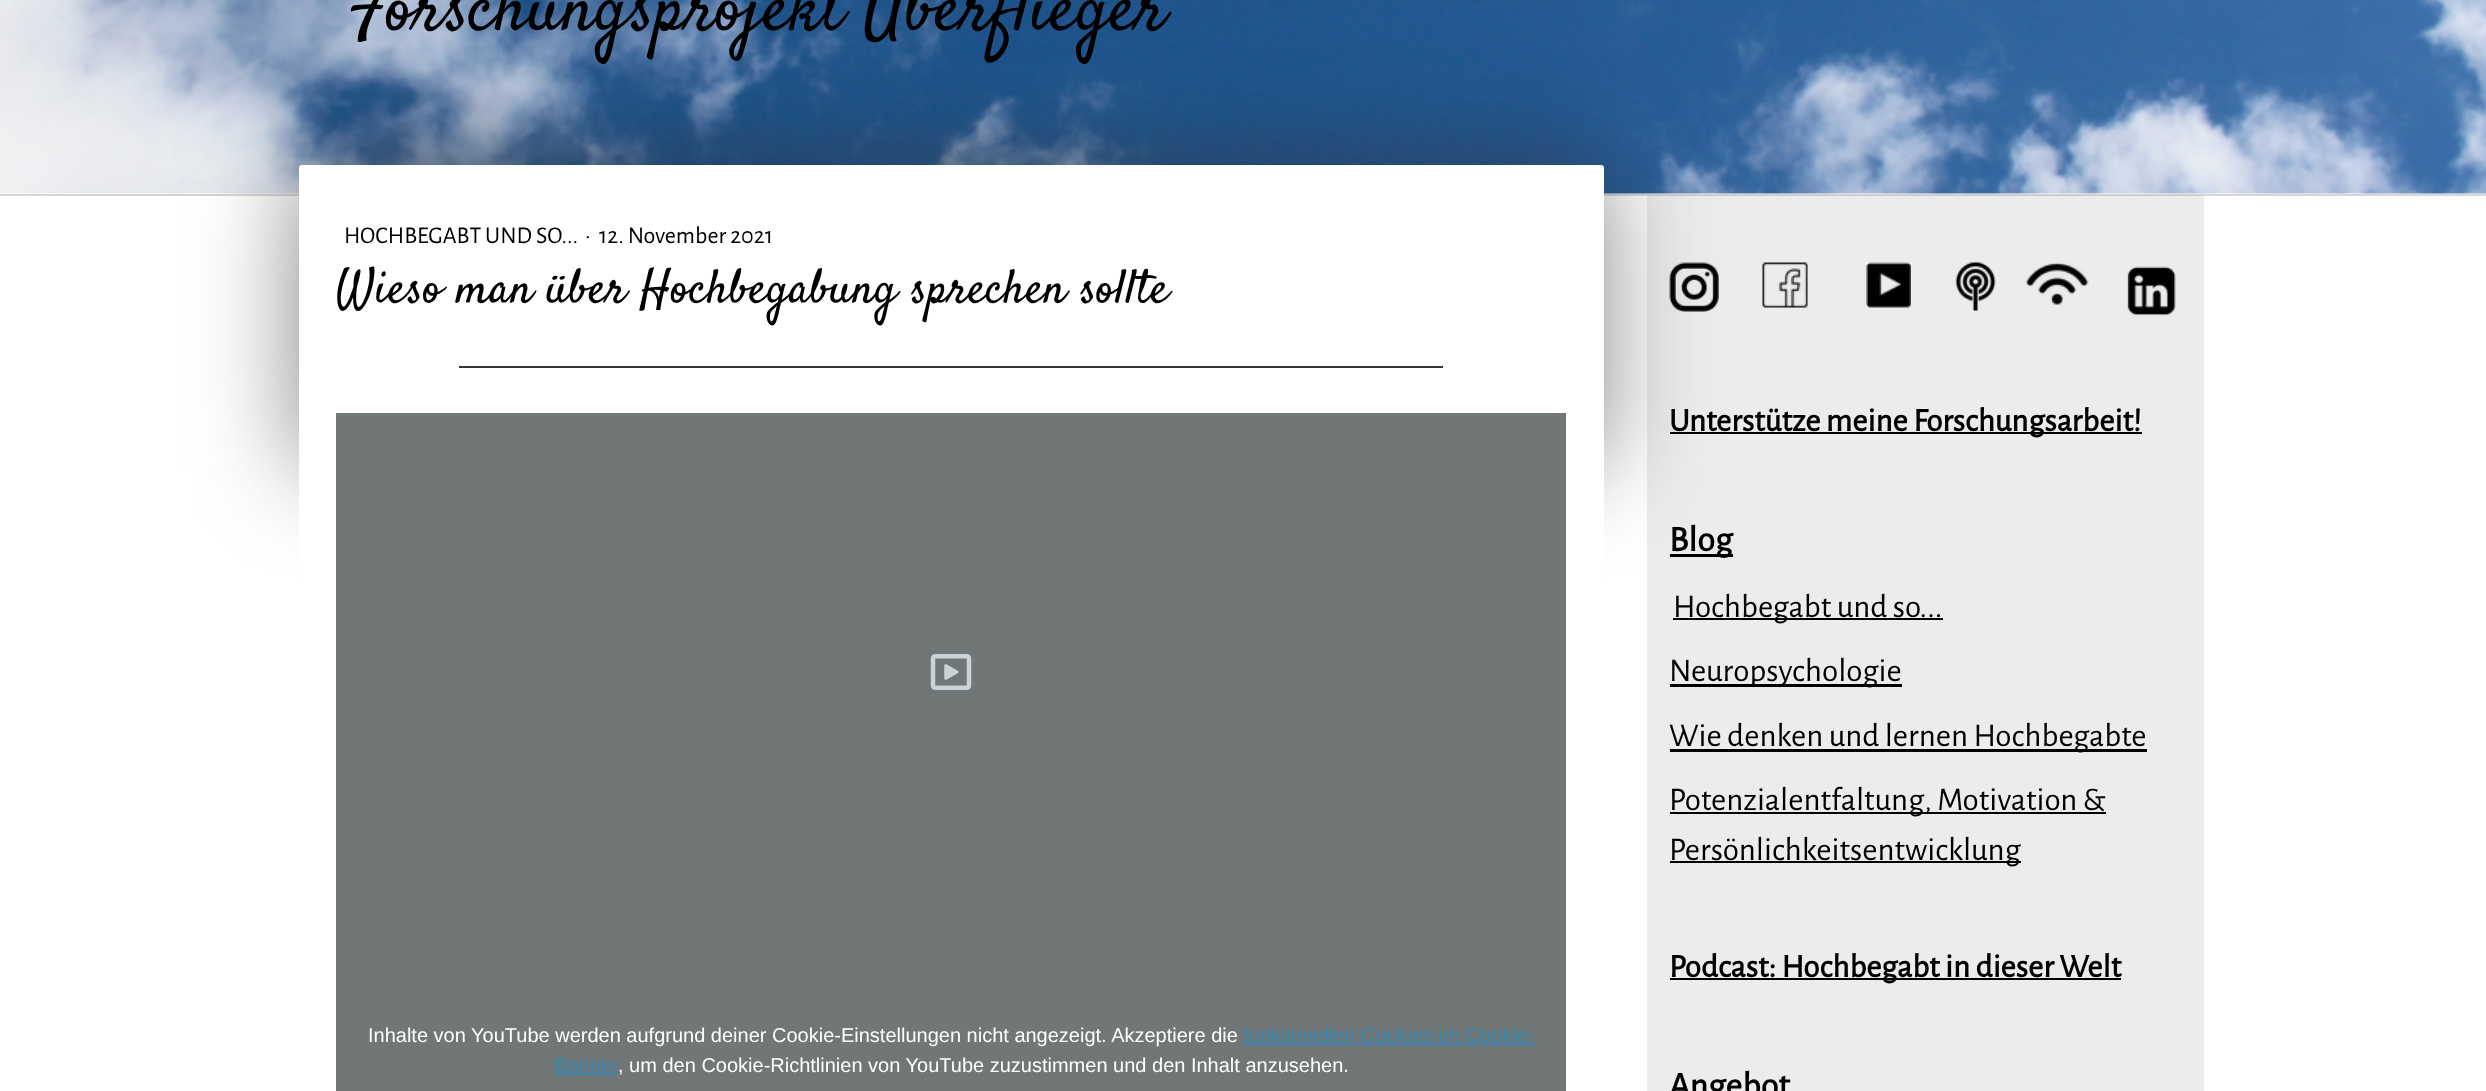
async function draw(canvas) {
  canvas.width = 2486;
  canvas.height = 1091;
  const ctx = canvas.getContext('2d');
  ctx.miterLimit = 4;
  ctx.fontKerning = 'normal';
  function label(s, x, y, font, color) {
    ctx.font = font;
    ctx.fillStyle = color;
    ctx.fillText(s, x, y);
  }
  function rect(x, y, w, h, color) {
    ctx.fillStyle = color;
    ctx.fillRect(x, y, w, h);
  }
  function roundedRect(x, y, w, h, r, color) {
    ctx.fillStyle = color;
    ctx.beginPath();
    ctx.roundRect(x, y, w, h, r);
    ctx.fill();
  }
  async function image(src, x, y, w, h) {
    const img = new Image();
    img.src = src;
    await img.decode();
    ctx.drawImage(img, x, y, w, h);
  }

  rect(0, 0, 2486, 1091, '#fff');
  rect(1647, 196, 557, 895, '#ececec');
  await image('assets/img1.png', 0, 0, 2486, 194);
  label('Forschungsprojekt Überflieger', 344, 29, '72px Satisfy', '#000');
  rect(0, 194, 2486, 2, '#d7d6d6');
  rect(1647, 195, 557, 1, '#cbcaca');
  rect(1670, 432, 472, 2, '#000');
  rect(1670, 554, 63, 3, '#000');
  rect(1673, 618, 270, 2, '#000');
  ctx.fillStyle = '#33333399';
  ctx.filter = 'blur(51px)';
  ctx.beginPath();
  ctx.rect(299, 165, 1305, 300);
  ctx.fill();
  ctx.filter = 'none';
  roundedRect(299, 165, 1305, 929, 3, '#fff');
  label('HOCHBEGABT UND SO...', 344, 243, '24px Alegreya Sans', '#000');
  label('·', 585, 243, '24px Alegreya Sans', '#000');
  label('12. November 2021', 599, 243, '24px Alegreya Sans', '#000');
  label('Wieso man über Hochbegabung sprechen sollte', 336, 302, '48px Satisfy', '#000');
  rect(459, 366, 984, 2, '#353535');
  rect(336, 413, 1230, 678, '#717677');
  await image('assets/img2.png', 930, 654, 42, 36);
  label('Inhalte von YouTube werden aufgrund deiner Cookie-Einstellungen nicht angezeigt. Akzeptiere die', 368, 1042, '20px Liberation Sans', '#fff');
  label('funktionellen Cookies im Cookie-', 1243, 1042, '20px Liberation Sans', '#3689b2');
  rect(1244, 1043, 291, 2, '#3689b2');
  label('Banner', 554, 1072, '20px Liberation Sans', '#3689b2');
  rect(555, 1073, 63, 2, '#3689b2');
  label(', um den Cookie-Richtlinien von YouTube zuzustimmen und den Inhalt anzusehen.', 618, 1072, '20px Liberation Sans', '#fff');
  await image('assets/img3.png', 1669, 262, 50, 50);
  await image('assets/img4.png', 1762, 262, 46, 46);
  await image('assets/img5.png', 1866, 262, 45, 46);
  await image('assets/img6.png', 1955, 262, 41, 49);
  await image('assets/img7.png', 2026, 262, 63, 43);
  await image('assets/img8.png', 2127, 266, 49, 50);
  label('Unterstütze meine Forschungsarbeit!', 1669, 431, 'bold 33px Alegreya Sans', '#000');
  label('Blog', 1669, 551, 'bold 36px Alegreya Sans', '#000');
  label('Hochbegabt und so...', 1673, 617, '33px Alegreya Sans', '#000');
  rect(1670, 684, 232, 3, '#000');
  label('Neuropsychologie', 1669, 681, '33px Alegreya Sans', '#000');
  rect(1670, 749, 477, 3, '#000');
  label('Wie denken und lernen Hochbegabte', 1669, 746, '33px Alegreya Sans', '#000');
  rect(1670, 812, 436, 2, '#000');
  label('Potenzialentfaltung, Motivation &', 1669, 810, '33px Alegreya Sans', '#000');
  rect(1670, 861, 351, 2, '#000');
  label('Persönlichkeitsentwicklung', 1669, 860, '33px Alegreya Sans', '#000');
  rect(1670, 978, 451, 2, '#000');
  label('Podcast: Hochbegabt in dieser Welt', 1669, 977, 'bold 33px Alegreya Sans', '#000');
  label('Angebot', 1669, 1097, 'bold 36px Alegreya Sans', '#000');
}

draw(document.querySelector('canvas'));
